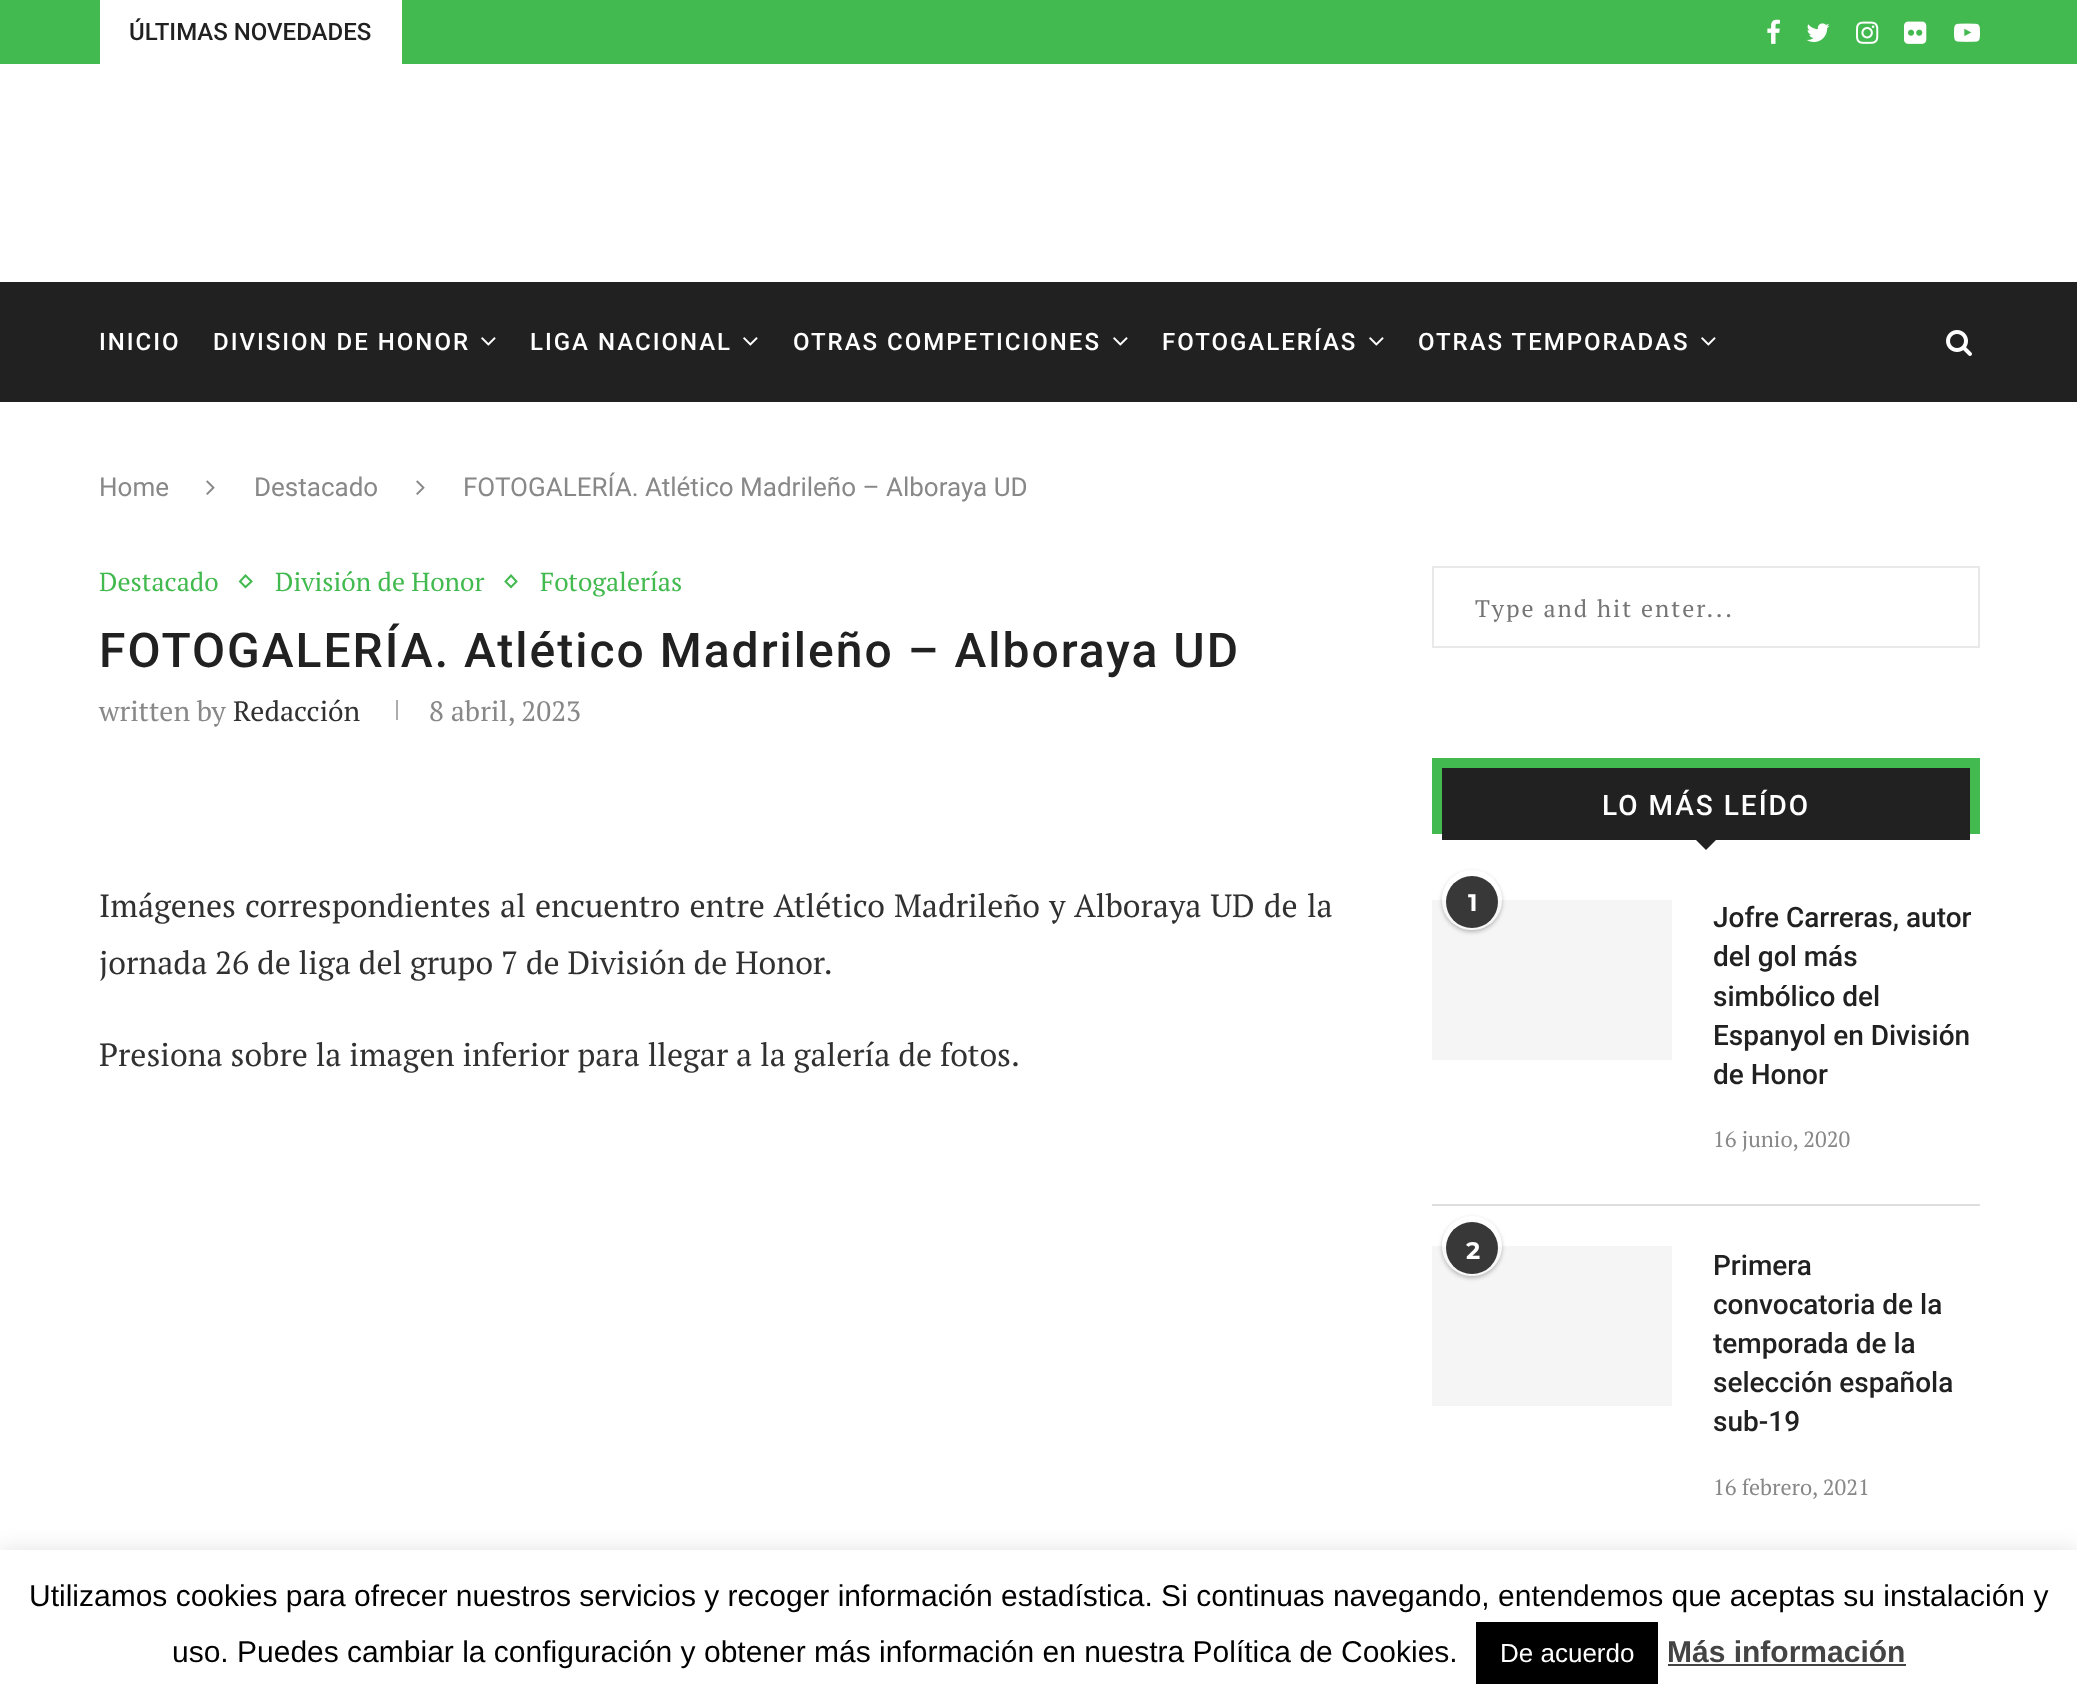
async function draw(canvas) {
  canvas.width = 2077;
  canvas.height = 1707;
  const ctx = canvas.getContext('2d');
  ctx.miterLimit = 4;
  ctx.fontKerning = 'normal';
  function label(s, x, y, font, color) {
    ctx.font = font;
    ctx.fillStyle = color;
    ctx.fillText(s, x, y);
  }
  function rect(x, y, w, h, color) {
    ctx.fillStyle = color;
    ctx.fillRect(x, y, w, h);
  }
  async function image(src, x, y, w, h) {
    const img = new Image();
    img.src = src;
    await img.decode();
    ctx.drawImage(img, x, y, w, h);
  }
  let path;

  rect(0, 0, 2077, 1707, '#fff');
  rect(0, 0, 2077, 64, '#43ba50');
  rect(100, 0, 302, 64, '#fff');
  label('ÚLTIMAS NOVEDADES', 129, 40, '500 24px Roboto', '#212121');
  await image('assets/img1.png', 1767, 19, 13, 25);
  await image('assets/img2.png', 1806, 23, 24, 19);
  await image('assets/img3.png', 1856, 21, 23, 23);
  await image('assets/img4.png', 1904, 21, 23, 23);
  await image('assets/img5.png', 1954, 23, 26, 19);
  rect(0, 282, 2077, 120, '#212121');
  ctx.letterSpacing = '2px';
  label('INICIO', 99, 350, '500 24px Roboto', '#fff');
  label('DIVISION DE HONOR', 213, 350, '500 24px Roboto', '#fff');
  await image('assets/img6.png', 481, 337, 15, 9);
  label('LIGA NACIONAL', 530, 350, '500 24px Roboto', '#fff');
  await image('assets/img6.png', 743, 337, 15, 9);
  label('OTRAS COMPETICIONES', 793, 350, '500 24px Roboto', '#fff');
  await image('assets/img6.png', 1113, 337, 15, 9);
  label('FOTOGALERÍAS', 1162, 350, '500 24px Roboto', '#fff');
  await image('assets/img6.png', 1369, 337, 15, 9);
  label('OTRAS TEMPORADAS', 1418, 350, '500 24px Roboto', '#fff');
  await image('assets/img6.png', 1701, 337, 15, 9);
  await image('assets/img7.png', 1946, 330, 26, 26);
  ctx.letterSpacing = '0px';
  label('Home', 99, 496, '26px Roboto', '#888');
  await image('assets/img8.png', 206, 480, 9, 15);
  label('Destacado', 254, 496, '26px Roboto', '#888');
  await image('assets/img8.png', 416, 480, 9, 15);
  label('FOTOGALERÍA. Atlético Madrileño – Alboraya UD', 463, 496, '26px Roboto', '#888');
  label('Destacado', 99, 591, '26px PT Serif', '#43ba50');
  path = new Path2D('M245.5 575.5L251.5 581.5L245.5 587L240 581.5Z');
  ctx.strokeStyle = '#43ba50';
  ctx.lineWidth = 2;
  ctx.stroke(path);
  label('División de Honor', 275, 591, '26px PT Serif', '#43ba50');
  path = new Path2D('M511 575.5L516.5 581.5L511 587L505.5 581.5Z');
  ctx.stroke(path);
  label('Fotogalerías', 540, 591, '26px PT Serif', '#43ba50');
  ctx.letterSpacing = '2px';
  label('FOTOGALERÍA. Atlético Madrileño – Alboraya UD', 99, 667, '500 48px Roboto', '#212121');
  ctx.letterSpacing = '0px';
  label('written by', 99, 721, '28px PT Serif', '#888');
  label('Redacción', 233, 721, '28px PT Serif', '#313131');
  rect(396, 700, 2, 20, '#acacac');
  label('8 abril, 2023', 429, 721, '28px PT Serif', '#888');
  ctx.wordSpacing = '1.4px';
  label('Imágenes correspondientes al encuentro entre Atlético Madrileño y Alboraya UD de la', 99, 917, '32px PT Serif', '#313131');
  ctx.wordSpacing = '0px';
  label('jornada 26 de liga del grupo 7 de División de Honor.', 99, 974, '32px PT Serif', '#313131');
  label('Presiona sobre la imagen inferior para llegar a la galería de fotos.', 99, 1066, '32px PT Serif', '#313131');
  ctx.strokeStyle = '#e9e9e9';
  ctx.strokeRect(1433, 567, 546, 80);
  ctx.letterSpacing = '2px';
  label('Type and hit enter...', 1475, 617, '24px PT Serif', '#757575');
  rect(1432, 758, 548, 76, '#43ba50');
  rect(1442, 768, 528, 72, '#212121');
  label('LO MÁS LEÍDO', 1602, 815, '500 28px Roboto', '#fff');
  ctx.fillStyle = '#212121';
  path = new Path2D('M1694 838H1718L1706 850Z');
  ctx.fill(path);
  rect(1432, 1204, 548, 2, '#dedede');
  rect(1432, 900, 240, 160, '#f5f5f5');
  ctx.save();
  path = new Path2D('M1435 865H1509V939H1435ZM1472 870C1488.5 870 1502 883.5 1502 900C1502 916.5 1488.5 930 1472 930C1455.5 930 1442 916.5 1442 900C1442 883.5 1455.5 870 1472 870Z');
  ctx.clip(path, 'evenodd');
  ctx.fillStyle = '#00000040';
  ctx.filter = 'blur(2px)';
  ctx.beginPath();
  ctx.roundRect(1442, 872, 60, 60, 30);
  ctx.fill();
  ctx.filter = 'none';
  ctx.restore();
  ctx.fillStyle = '#ffffff4d';
  ctx.beginPath();
  ctx.arc(1472, 900, 30, 0, 2 * Math.PI);
  ctx.fill();
  ctx.fillStyle = '#383838';
  ctx.beginPath();
  ctx.arc(1472, 902, 26, 0, 2 * Math.PI);
  ctx.fill();
  ctx.letterSpacing = '0px';
  label('1', 1468, 911, 'bold 24px Montserrat', '#fff');
  label('Jofre Carreras, autor', 1713, 927, '500 28px Roboto', '#212121');
  label('del gol más', 1713, 966, '500 28px Roboto', '#212121');
  label('simbólico del', 1713, 1006, '500 28px Roboto', '#212121');
  label('Espanyol en División', 1713, 1045, '500 28px Roboto', '#212121');
  label('de Honor', 1713, 1084, '500 28px Roboto', '#212121');
  label('16 junio, 2020', 1713, 1147, '22px PT Serif', '#888');
  rect(1432, 1246, 240, 160, '#f5f5f5');
  ctx.save();
  path = new Path2D('M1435 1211H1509V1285H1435ZM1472 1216C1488.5 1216 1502 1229.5 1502 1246C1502 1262.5 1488.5 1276 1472 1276C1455.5 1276 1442 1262.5 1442 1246C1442 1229.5 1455.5 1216 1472 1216Z');
  ctx.clip(path, 'evenodd');
  ctx.fillStyle = '#00000040';
  ctx.filter = 'blur(2px)';
  ctx.beginPath();
  ctx.roundRect(1442, 1218, 60, 60, 30);
  ctx.fill();
  ctx.filter = 'none';
  ctx.restore();
  ctx.fillStyle = '#ffffff4d';
  ctx.beginPath();
  ctx.arc(1472, 1246, 30, 0, 2 * Math.PI);
  ctx.fill();
  ctx.fillStyle = '#383838';
  ctx.beginPath();
  ctx.arc(1472, 1248, 26, 0, 2 * Math.PI);
  ctx.fill();
  label('2', 1466, 1259, 'bold 24px Montserrat', '#fff');
  label('Primera', 1713, 1275, '500 28px Roboto', '#212121');
  label('convocatoria de la', 1713, 1314, '500 28px Roboto', '#212121');
  label('temporada de la', 1713, 1353, '500 28px Roboto', '#212121');
  label('selección española', 1713, 1392, '500 28px Roboto', '#212121');
  label('sub-19', 1713, 1431, '500 28px Roboto', '#212121');
  label('16 febrero, 2021', 1713, 1495, '22px PT Serif', '#888');
  ctx.fillStyle = '#acabab4d';
  ctx.filter = 'blur(10px)';
  ctx.beginPath();
  ctx.rect(0, 1548, 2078, 158);
  ctx.fill();
  ctx.filter = 'none';
  rect(0, 1550, 2077, 157, '#fff');
  label('Utilizamos cookies para ofrecer nuestros servicios y recoger información estadística. Si continuas navegando, entendemos que aceptas su instalación y', 29, 1606, '30px Liberation Sans', '#000');
  label('uso. Puedes cambiar la configuración y obtener más información en nuestra Política de Cookies.', 172, 1662, '30px Liberation Sans', '#000');
  rect(1476, 1622, 182, 62, '#000');
  label('De acuerdo', 1500, 1662, '26px Liberation Sans', '#fff');
  label('Más información', 1667, 1662, 'bold 30px Liberation Sans', '#444');
  rect(1668, 1664, 238, 2, '#444');
}

draw(document.querySelector('canvas'));
